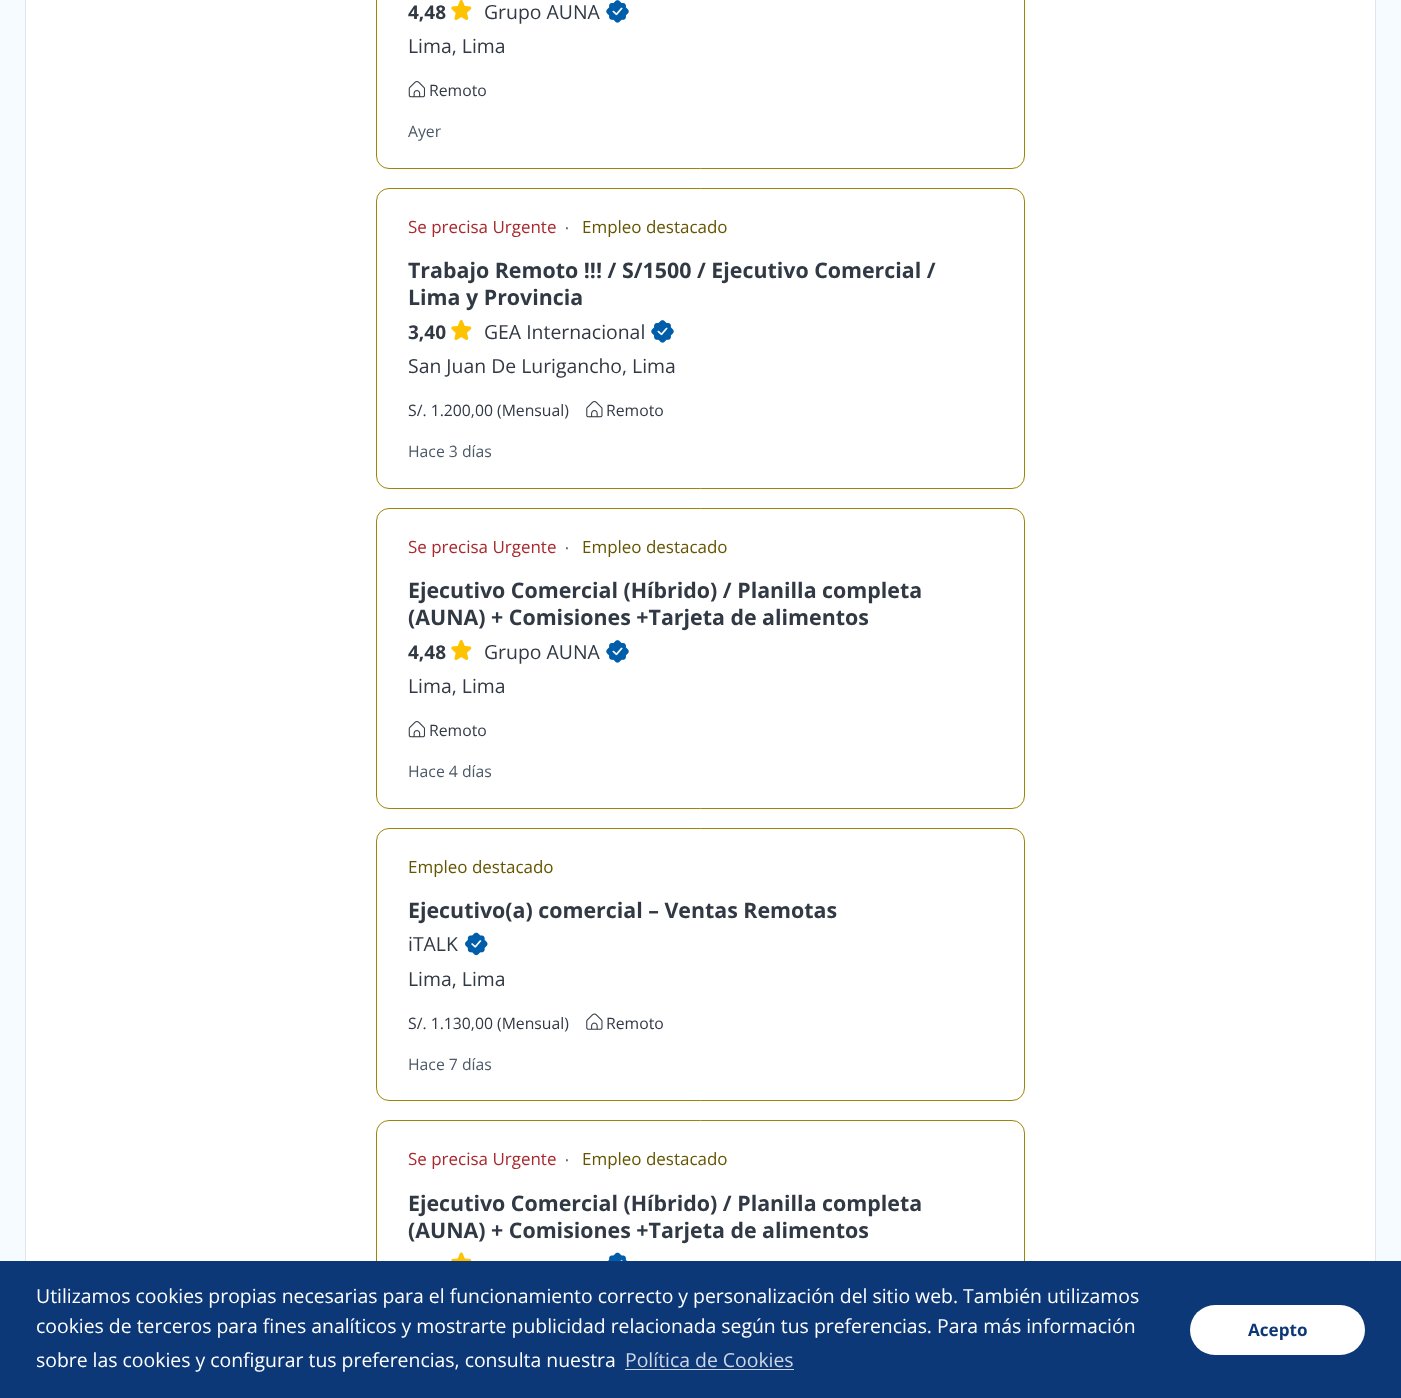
async function draw(canvas) {
  canvas.width = 1401;
  canvas.height = 1398;
  const ctx = canvas.getContext('2d');
  ctx.miterLimit = 4;
  ctx.fontKerning = 'normal';
  function label(s, x, y, font, color) {
    ctx.font = font;
    ctx.fillStyle = color;
    ctx.fillText(s, x, y);
  }
  function rect(x, y, w, h, color) {
    ctx.fillStyle = color;
    ctx.fillRect(x, y, w, h);
  }
  function roundedRect(x, y, w, h, r, color) {
    ctx.fillStyle = color;
    ctx.beginPath();
    ctx.roundRect(x, y, w, h, r);
    ctx.fill();
  }
  async function image(src, x, y, w, h) {
    const img = new Image();
    img.src = src;
    await img.decode();
    ctx.drawImage(img, x, y, w, h);
  }

  rect(0, 0, 1401, 1398, '#f6fbff');
  rect(26, 0, 1349, 1261, '#fff');
  ctx.strokeStyle = '#e1e5ea';
  ctx.strokeRect(25.5, -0.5, 1350, 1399);
  ctx.beginPath();
  ctx.roundRect(376.5, -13.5, 648, 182, 12.5);
  ctx.strokeStyle = '#9f8505';
  ctx.stroke();
  label('4,48', 408, 19, 'bold 20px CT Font', '#313944');
  await image('assets/img1.png', 451, 0, 21, 20);
  label('Grupo AUNA', 484, 19, '20px CT Font', '#313944');
  await image('assets/img2.png', 606, 0, 23, 23);
  label('Lima, Lima', 408, 53, '20px CT Font', '#313944');
  await image('assets/img3.png', 408, 81, 17, 17);
  label('Remoto', 429, 96, '16.25px CT Font', '#313944');
  label('Ayer', 408, 137, '16.25px CT Font', '#4b5968');
  ctx.beginPath();
  ctx.roundRect(376.5, 188.5, 648, 300, 12.5);
  ctx.stroke();
  label('Se precisa Urgente', 408, 233, '17.5px CT Font', '#a8282d');
  label('·', 564, 233, '17.5px Liberation Sans', '#4b5968');
  label('Empleo destacado', 582, 233, '17.5px CT Font', '#655401');
  label('Trabajo Remoto !!! / S/1500 / Ejecutivo Comercial /', 408, 278, 'bold 22.5px CT Font', '#313944');
  label('Lima y Provincia', 408, 305, 'bold 22.5px CT Font', '#313944');
  label('3,40', 408, 339, 'bold 20px CT Font', '#313944');
  await image('assets/img1.png', 451, 320, 21, 20);
  label('GEA Internacional', 484, 339, '20px CT Font', '#313944');
  await image('assets/img2.png', 651, 320, 23, 23);
  label('San Juan De Lurigancho, Lima', 408, 373, '20px CT Font', '#313944');
  label('S/. 1.200,00 (Mensual)', 408, 416, '16.25px CT Font', '#313944');
  await image('assets/img4.png', 586, 401, 17, 17);
  label('Remoto', 606, 416, '16.25px CT Font', '#313944');
  label('Hace 3 días', 408, 457, '16.25px CT Font', '#4b5968');
  ctx.beginPath();
  ctx.roundRect(376.5, 508.5, 648, 300, 12.5);
  ctx.stroke();
  label('Se precisa Urgente', 408, 553, '17.5px CT Font', '#a8282d');
  label('·', 564, 553, '17.5px Liberation Sans', '#4b5968');
  label('Empleo destacado', 582, 553, '17.5px CT Font', '#655401');
  label('Ejecutivo Comercial (Híbrido) / Planilla completa', 408, 598, 'bold 22.5px CT Font', '#313944');
  label('(AUNA) + Comisiones +Tarjeta de alimentos', 408, 625, 'bold 22.5px CT Font', '#313944');
  label('4,48', 408, 659, 'bold 20px CT Font', '#313944');
  await image('assets/img1.png', 451, 640, 21, 20);
  label('Grupo AUNA', 484, 659, '20px CT Font', '#313944');
  await image('assets/img2.png', 606, 640, 23, 23);
  label('Lima, Lima', 408, 693, '20px CT Font', '#313944');
  await image('assets/img3.png', 408, 721, 17, 17);
  label('Remoto', 429, 736, '16.25px CT Font', '#313944');
  label('Hace 4 días', 408, 777, '16.25px CT Font', '#4b5968');
  ctx.beginPath();
  ctx.roundRect(376.5, 828.5, 648, 272, 12.5);
  ctx.stroke();
  label('Empleo destacado', 408, 873, '17.5px CT Font', '#655401');
  label('Ejecutivo(a) comercial – Ventas Remotas', 408, 918, 'bold 22.5px CT Font', '#313944');
  label('iTALK', 408, 951, '20px CT Font', '#313944');
  await image('assets/img5.png', 465, 932, 23, 24);
  label('Lima, Lima', 408, 986, '20px CT Font', '#313944');
  label('S/. 1.130,00 (Mensual)', 408, 1029, '16.25px CT Font', '#313944');
  await image('assets/img6.png', 586, 1013, 17, 17);
  label('Remoto', 606, 1029, '16.25px CT Font', '#313944');
  label('Hace 7 días', 408, 1070, '16.25px CT Font', '#4b5968');
  ctx.beginPath();
  ctx.roundRect(376.5, 1120.5, 648, 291, 12.5);
  ctx.stroke();
  label('Se precisa Urgente', 408, 1165, '17.5px CT Font', '#a8282d');
  label('·', 564, 1165, '17.5px Liberation Sans', '#4b5968');
  label('Empleo destacado', 582, 1165, '17.5px CT Font', '#655401');
  label('Ejecutivo Comercial (Híbrido) / Planilla completa', 408, 1211, 'bold 22.5px CT Font', '#313944');
  label('(AUNA) + Comisiones +Tarjeta de alimentos', 408, 1238, 'bold 22.5px CT Font', '#313944');
  await image('assets/img7.png', 451, 1252, 21, 9);
  await image('assets/img8.png', 608, 1252, 19, 9);
  rect(0, 1261, 1401, 137, '#0d3878');
  label('Utilizamos cookies propias necesarias para el funcionamiento correcto y personalización del sitio web. También utilizamos', 36, 1303, '20px CT Font', '#fff');
  label('cookies de terceros para fines analíticos y mostrarte publicidad relacionada según tus preferencias. Para más información', 36, 1333, '20px CT Font', '#fff');
  label('sobre las cookies y configurar tus preferencias, consulta nuestra', 36, 1367, '20px CT Font', '#fff');
  label('Política de Cookies', 625, 1367, '20px CT Font', '#cfd7e4');
  rect(625, 1369, 169, 1, '#cfd7e4');
  roundedRect(1190, 1305, 175, 50, 25, '#fff');
  label('Acepto', 1248, 1336, 'bold 18px CT Font', '#0d3878');
}

draw(document.querySelector('canvas'));
